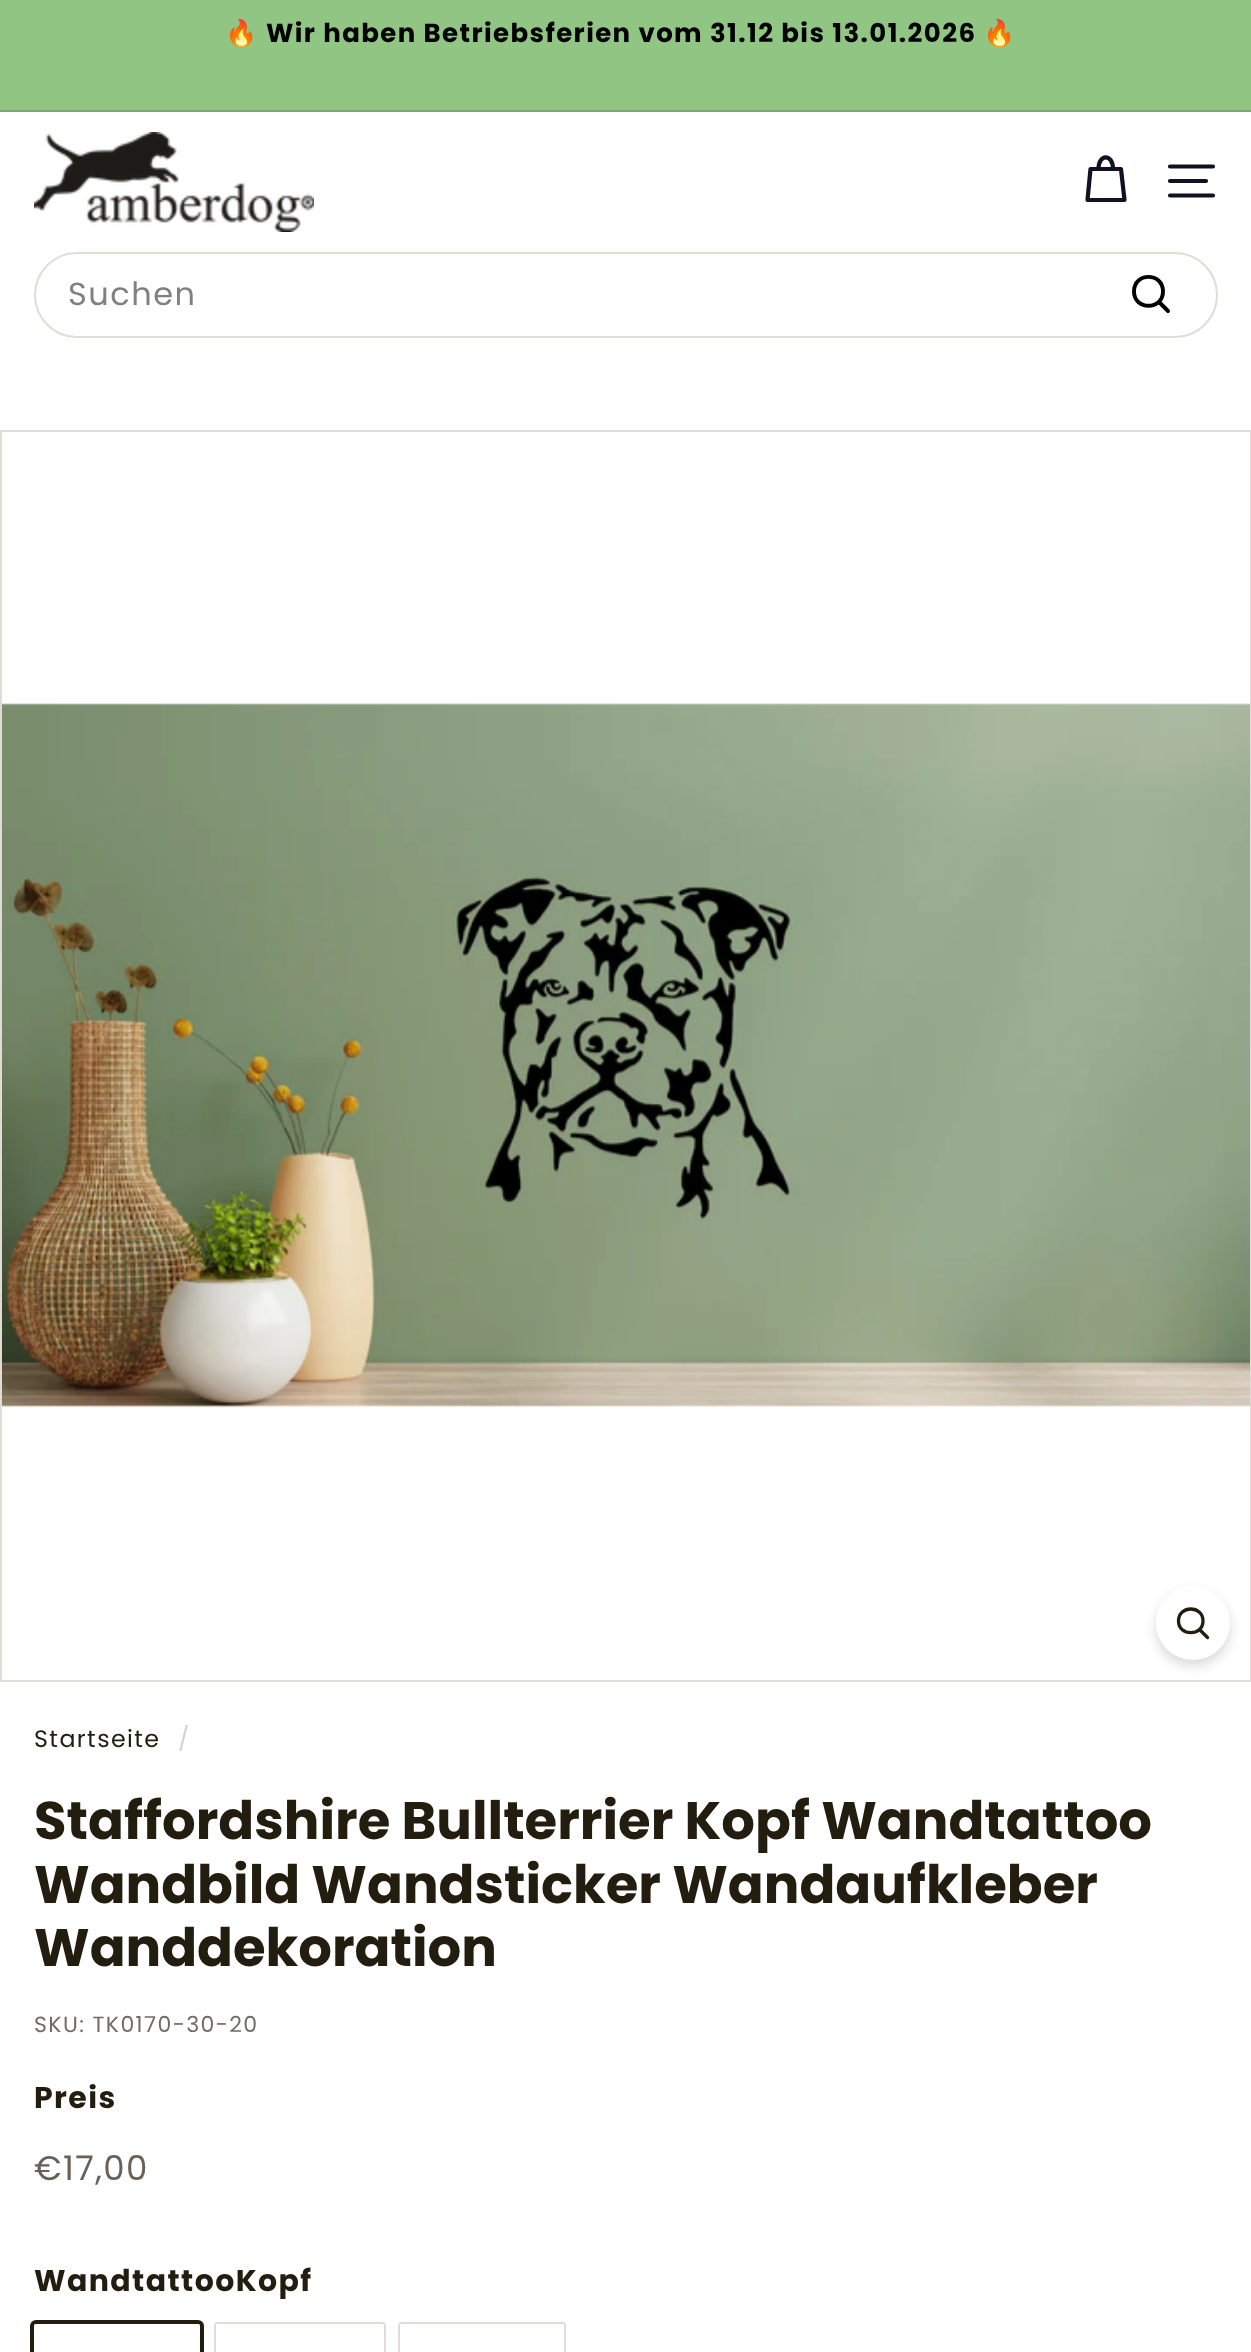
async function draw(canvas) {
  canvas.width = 1251;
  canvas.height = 2352;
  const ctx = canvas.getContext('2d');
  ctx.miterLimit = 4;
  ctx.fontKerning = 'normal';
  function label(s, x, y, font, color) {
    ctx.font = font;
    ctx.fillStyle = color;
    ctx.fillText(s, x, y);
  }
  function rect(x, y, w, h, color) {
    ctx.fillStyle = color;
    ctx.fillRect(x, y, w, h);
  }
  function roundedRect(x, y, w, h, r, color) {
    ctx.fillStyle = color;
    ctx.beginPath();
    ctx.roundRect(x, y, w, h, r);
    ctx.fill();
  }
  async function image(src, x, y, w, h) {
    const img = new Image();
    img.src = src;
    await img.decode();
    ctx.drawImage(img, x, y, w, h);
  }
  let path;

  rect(0, 0, 1251, 2352, '#fff');
  rect(0, 0, 1251, 110, '#90c583');
  ctx.letterSpacing = '1.4px';
  label('🔥', 225, 42, 'bold 26px Noto Color Emoji', '#000');
  label('Wir haben Betriebsferien vom 31.12 bis 13.01.2026', 266, 42, 'bold 26px Poppins', '#000');
  label('🔥', 983, 42, 'bold 26px Noto Color Emoji', '#000');
  rect(0, 110, 1251, 2, '#7aa76f');
  await image('assets/img1.png', 34, 132, 280, 100);
  path = new Path2D('M1098.5 169C1098.5 153.5 1113 153.5 1113 169M1090.5 169H1121L1124.5 200H1087.5Z');
  ctx.strokeStyle = '#101123';
  ctx.lineWidth = 4.2;
  ctx.lineCap = 'round';
  ctx.lineJoin = 'round';
  ctx.stroke(path);
  path = new Path2D('M1170 166.5H1213M1170 181H1206M1170 195.5H1213');
  ctx.stroke(path);
  ctx.beginPath();
  ctx.roundRect(35, 253, 1182, 84, 42);
  ctx.strokeStyle = '#dfddd5';
  ctx.lineWidth = 2;
  ctx.lineJoin = 'miter';
  ctx.stroke();
  ctx.letterSpacing = '1.5px';
  label('Suchen', 68, 305, '32px Poppins', '#808080');
  path = new Path2D('M1163 291.5C1163 310.5 1134 310.5 1134 291.5C1134 272 1163 272 1163 291.5ZM1168 311L1159 302');
  ctx.strokeStyle = '#000';
  ctx.lineWidth = 3.9;
  ctx.lineJoin = 'round';
  ctx.stroke(path);
  ctx.strokeStyle = '#dfddd5';
  ctx.lineWidth = 2;
  ctx.lineJoin = 'miter';
  ctx.strokeRect(1, 431, 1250, 1250);
  await image('assets/img2.png', 2, 703, 1248, 705);
  ctx.fillStyle = '#00000026';
  ctx.filter = 'blur(6px)';
  ctx.beginPath();
  ctx.roundRect(1156, 1592, 74, 74, 37);
  ctx.fill();
  ctx.filter = 'none';
  ctx.fillStyle = '#fff';
  ctx.beginPath();
  ctx.arc(1193, 1623, 37, 0, 2 * Math.PI);
  ctx.fill();
  path = new Path2D('M1203 1621C1203 1636.5 1178.5 1636.5 1178.5 1621C1178.5 1605 1203 1605 1203 1621ZM1207.5 1637.5L1199.5 1629.5');
  ctx.strokeStyle = '#231d10';
  ctx.lineWidth = 3.3;
  ctx.lineJoin = 'round';
  ctx.stroke(path);
  ctx.letterSpacing = '1.4px';
  label('Startseite', 34, 1747, '23.75px Poppins', '#231d10');
  label('/', 178, 1747, '23.75px Poppins', '#d3d2cf');
  ctx.letterSpacing = '0px';
  label('Staffordshire Bullterrier Kopf Wandtattoo', 34, 1839, 'bold 52.9px Poppins', '#231d10');
  label('Wandbild Wandsticker Wandaufkleber', 34, 1903, 'bold 52.9px Poppins', '#231d10');
  label('Wanddekoration', 34, 1966, 'bold 52.9px Poppins', '#231d10');
  ctx.letterSpacing = '1.4px';
  label('SKU: TK0170-30-20', 34, 2032, '22px Poppins', '#706c64');
  label('Preis', 34, 2108, 'bold 30px Poppins', '#231d10');
  label('€17,00', 34, 2180, '34px Poppins', '#6a6058');
  label('WandtattooKopf', 34, 2291, 'bold 30px Poppins', '#231d10');
  ctx.beginPath();
  ctx.roundRect(32, 2322, 170, 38, 4);
  ctx.lineWidth = 4;
  ctx.lineJoin = 'miter';
  ctx.stroke();
  roundedRect(34, 2324, 166, 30, 2, '#fff');
  ctx.beginPath();
  ctx.roundRect(215, 2323, 170, 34, 3);
  ctx.strokeStyle = '#dfddd5';
  ctx.lineWidth = 2;
  ctx.stroke();
  roundedRect(216, 2324, 168, 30, 2, '#fff');
  ctx.beginPath();
  ctx.roundRect(399, 2323, 166, 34, 3);
  ctx.stroke();
  roundedRect(400, 2324, 164, 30, 2, '#fff');
}

draw(document.querySelector('canvas'));
